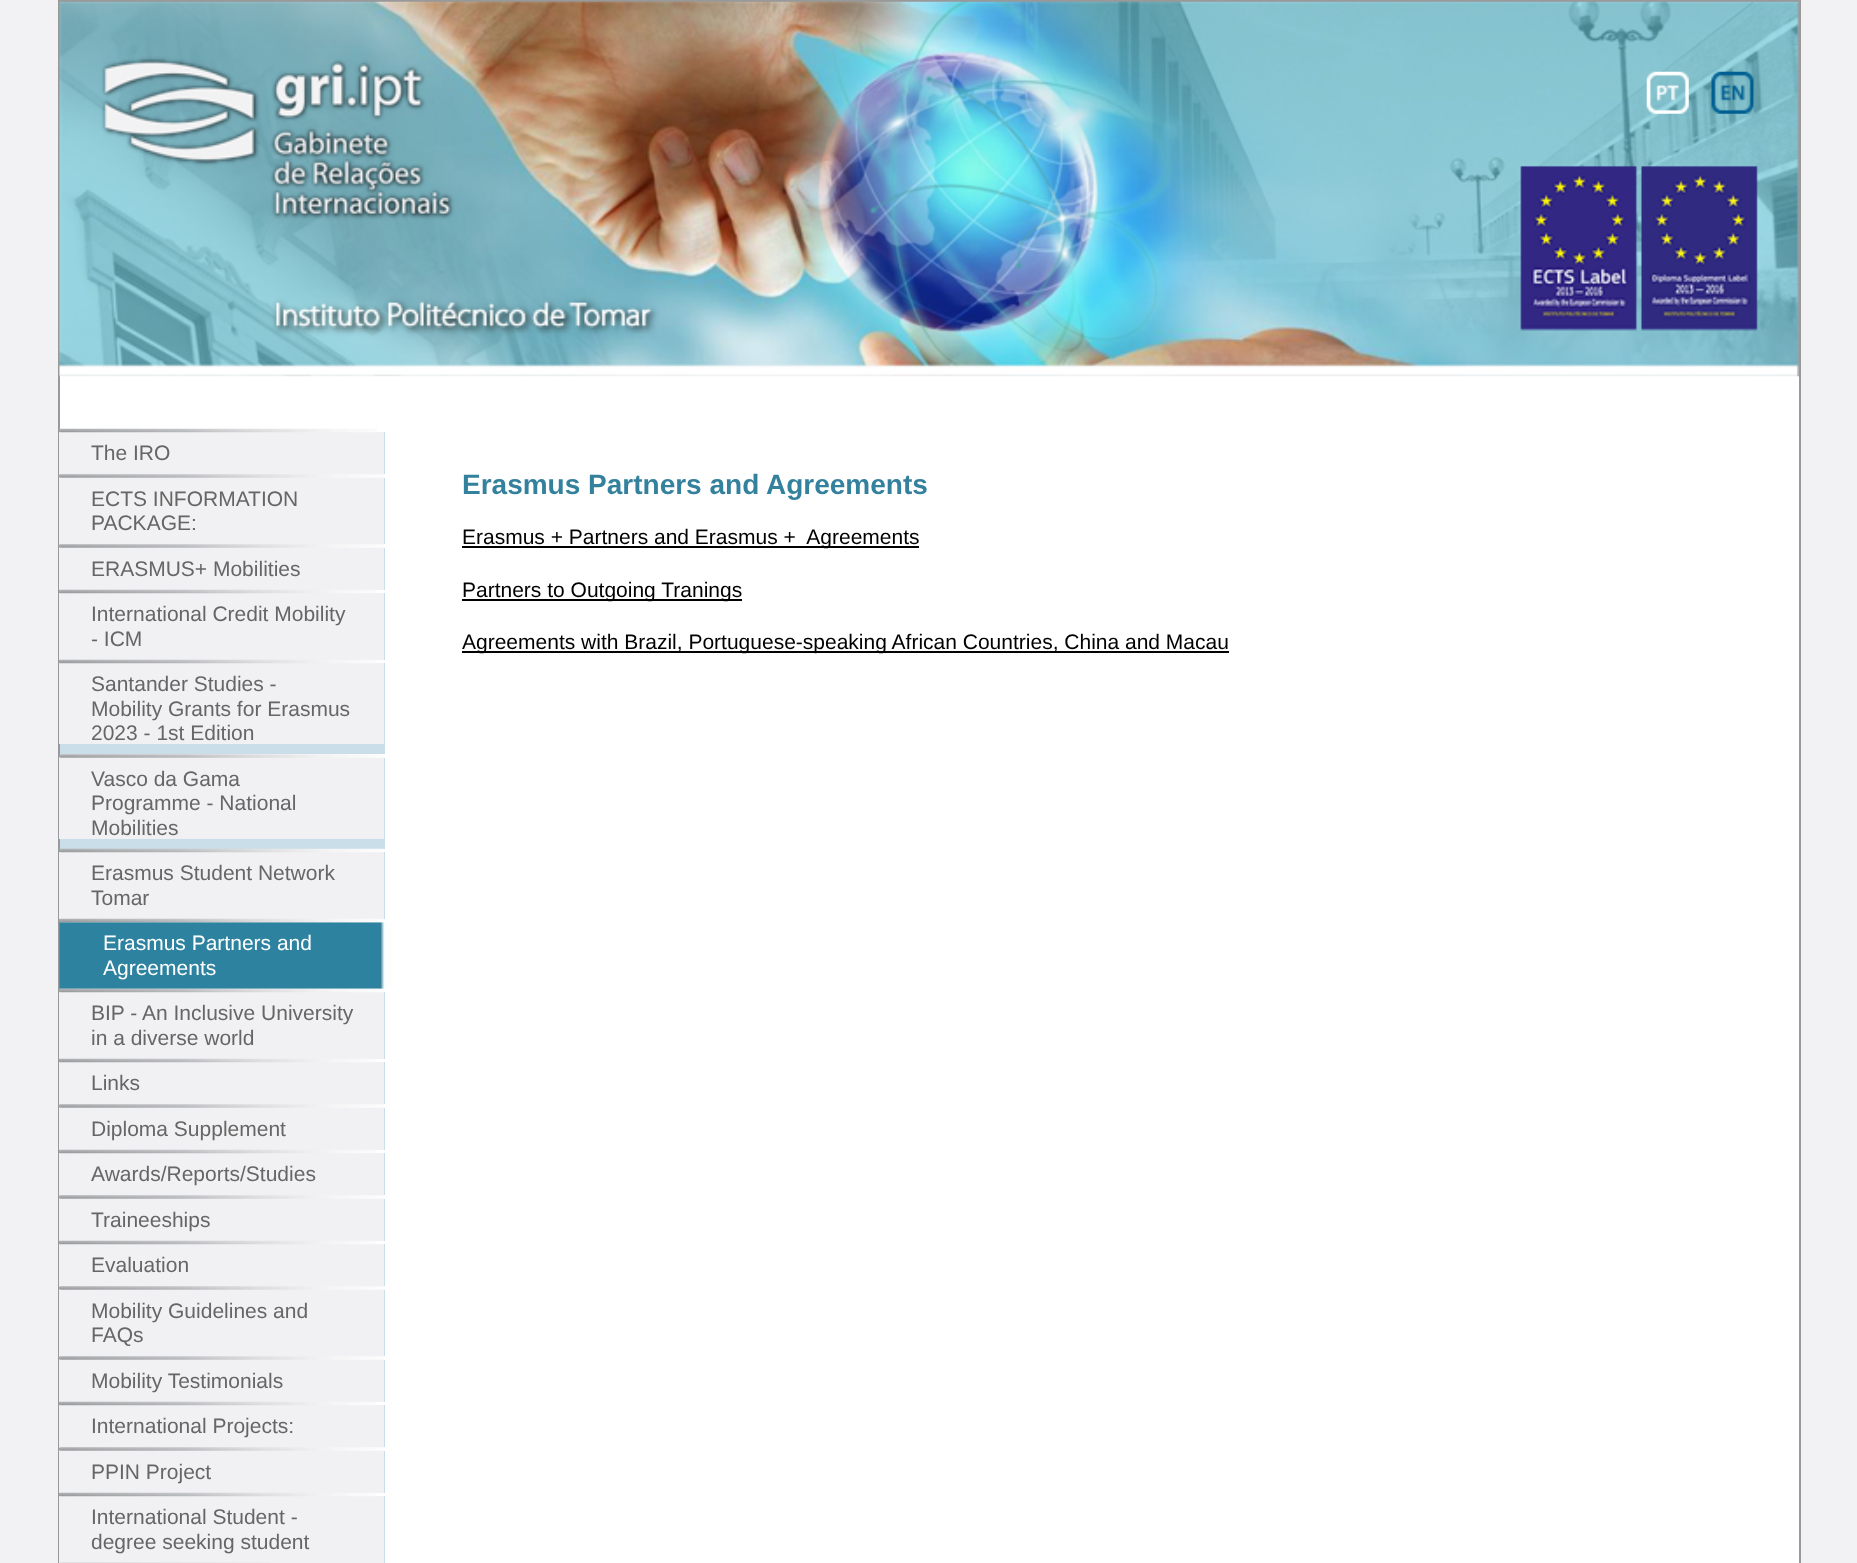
async function draw(canvas) {
  canvas.width = 1857;
  canvas.height = 1563;
  const ctx = canvas.getContext('2d');
  ctx.miterLimit = 4;
  ctx.fontKerning = 'normal';
  function label(s, x, y, font, color) {
    ctx.font = font;
    ctx.fillStyle = color;
    ctx.fillText(s, x, y);
  }
  function rect(x, y, w, h, color) {
    ctx.fillStyle = color;
    ctx.fillRect(x, y, w, h);
  }
  async function image(src, x, y, w, h) {
    const img = new Image();
    img.src = src;
    await img.decode();
    ctx.drawImage(img, x, y, w, h);
  }

  rect(0, 0, 1857, 1563, '#f2f2f4');
  rect(60, 376, 1739, 1187, '#fff');
  ctx.strokeStyle = '#999';
  ctx.lineWidth = 2;
  ctx.strokeRect(59, 1, 1741, 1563);
  await image('assets/img1.png', 59, 1, 1740, 376);
  await image('assets/img2.png', 1646, 71, 43, 43);
  await image('assets/img3.png', 1711, 71, 43, 43);
  rect(59, 432, 325, 43, '#f1f1f3');
  await image('assets/img4.png', 59, 428, 318, 5);
  rect(384, 432, 1, 42, '#cadee9');
  label('The IRO', 91, 460, '21px Liberation Sans', '#666');
  rect(59, 477, 325, 68, '#f1f1f3');
  await image('assets/img5.png', 59, 474, 324, 4);
  rect(384, 478, 1, 66, '#cadee9');
  label('ECTS INFORMATION', 91, 506, '21px Liberation Sans', '#666');
  label('PACKAGE:', 91, 530, '21px Liberation Sans', '#666');
  rect(59, 547, 325, 43, '#f1f1f3');
  await image('assets/img5.png', 59, 544, 324, 4);
  rect(384, 548, 1, 42, '#cadee9');
  label('ERASMUS+ Mobilities', 91, 576, '21px Liberation Sans', '#666');
  rect(59, 593, 325, 67, '#f1f1f3');
  await image('assets/img6.png', 59, 589, 318, 5);
  rect(384, 593, 1, 67, '#cadee9');
  label('International Credit Mobility', 91, 621, '21px Liberation Sans', '#666');
  label('- ICM', 91, 646, '21px Liberation Sans', '#666');
  rect(60, 663, 325, 91, '#cadee9');
  rect(59, 663, 325, 81, '#f1f1f3');
  await image('assets/img6.png', 59, 659, 318, 5);
  label('Santander Studies -', 91, 691, '21px Liberation Sans', '#666');
  label('Mobility Grants for Erasmus', 91, 716, '21px Liberation Sans', '#666');
  label('2023 - 1st Edition', 91, 740, '21px Liberation Sans', '#666');
  rect(60, 758, 325, 91, '#cadee9');
  rect(59, 757, 325, 82, '#f1f1f3');
  await image('assets/img7.png', 59, 754, 324, 4);
  label('Vasco da Gama', 91, 786, '21px Liberation Sans', '#666');
  label('Programme - National', 91, 810, '21px Liberation Sans', '#666');
  label('Mobilities', 91, 835, '21px Liberation Sans', '#666');
  rect(59, 852, 325, 67, '#f1f1f3');
  await image('assets/img8.png', 59, 848, 324, 5);
  rect(384, 852, 1, 67, '#cadee9');
  label('Erasmus Student Network', 91, 880, '21px Liberation Sans', '#666');
  label('Tomar', 91, 905, '21px Liberation Sans', '#666');
  await image('assets/img10.png', 59, 922, 347, 67);
  await image('assets/img9.png', 59, 918, 324, 5);
  label('Erasmus Partners and', 103, 950, '21px Liberation Sans', '#fff');
  label('Agreements', 103, 975, '21px Liberation Sans', '#fff');
  rect(59, 992, 325, 67, '#f1f1f3');
  await image('assets/img11.png', 59, 988, 324, 5);
  rect(384, 992, 1, 67, '#cadee9');
  label('BIP - An Inclusive University', 91, 1020, '21px Liberation Sans', '#666');
  label('in a diverse world', 91, 1045, '21px Liberation Sans', '#666');
  rect(59, 1062, 325, 43, '#f1f1f3');
  await image('assets/img6.png', 59, 1058, 318, 5);
  rect(384, 1062, 1, 42, '#cadee9');
  label('Links', 91, 1090, '21px Liberation Sans', '#666');
  rect(59, 1107, 325, 43, '#f1f1f3');
  await image('assets/img5.png', 59, 1104, 324, 4);
  rect(384, 1108, 1, 42, '#cadee9');
  label('Diploma Supplement', 91, 1136, '21px Liberation Sans', '#666');
  rect(59, 1153, 325, 43, '#f1f1f3');
  await image('assets/img6.png', 59, 1149, 318, 5);
  rect(384, 1153, 1, 42, '#cadee9');
  label('Awards/Reports/Studies', 91, 1181, '21px Liberation Sans', '#666');
  rect(59, 1198, 325, 43, '#f1f1f3');
  await image('assets/img5.png', 59, 1195, 324, 4);
  rect(384, 1199, 1, 42, '#cadee9');
  label('Traineeships', 91, 1227, '21px Liberation Sans', '#666');
  rect(59, 1244, 325, 43, '#f1f1f3');
  await image('assets/img6.png', 59, 1240, 318, 5);
  rect(384, 1244, 1, 42, '#cadee9');
  label('Evaluation', 91, 1272, '21px Liberation Sans', '#666');
  rect(59, 1289, 325, 68, '#f1f1f3');
  await image('assets/img5.png', 59, 1286, 324, 4);
  rect(384, 1290, 1, 66, '#cadee9');
  label('Mobility Guidelines and', 91, 1318, '21px Liberation Sans', '#666');
  label('FAQs', 91, 1342, '21px Liberation Sans', '#666');
  rect(59, 1359, 325, 43, '#f1f1f3');
  await image('assets/img5.png', 59, 1356, 324, 4);
  rect(384, 1360, 1, 42, '#cadee9');
  label('Mobility Testimonials', 91, 1388, '21px Liberation Sans', '#666');
  rect(59, 1405, 325, 43, '#f1f1f3');
  await image('assets/img6.png', 59, 1401, 318, 5);
  rect(384, 1405, 1, 42, '#cadee9');
  label('International Projects:', 91, 1433, '21px Liberation Sans', '#666');
  rect(59, 1450, 325, 43, '#f1f1f3');
  await image('assets/img5.png', 59, 1447, 324, 4);
  rect(384, 1451, 1, 42, '#cadee9');
  label('PPIN Project', 91, 1479, '21px Liberation Sans', '#666');
  rect(59, 1496, 325, 67, '#f1f1f3');
  await image('assets/img6.png', 59, 1492, 318, 5);
  rect(384, 1496, 1, 67, '#cadee9');
  label('International Student -', 91, 1524, '21px Liberation Sans', '#666');
  label('degree seeking student', 91, 1549, '21px Liberation Sans', '#666');
  await image('assets/img12.png', 59, 1562, 211, 1);
  label('Erasmus Partners and Agreements', 462, 494, 'bold 28px Liberation Sans', '#34819d');
  rect(462, 546, 457, 2, '#000');
  label('Erasmus + Partners and Erasmus +  Agreements', 462, 544, '21px Liberation Sans', '#000');
  rect(462, 599, 280, 2, '#000');
  label('Partners to Outgoing Tranings', 462, 597, '21px Liberation Sans', '#000');
  rect(462, 651, 767, 2, '#000');
  label('Agreements with Brazil, Portuguese-speaking African Countries, China and Macau', 462, 649, '21px Liberation Sans', '#000');
}

draw(document.querySelector('canvas'));
